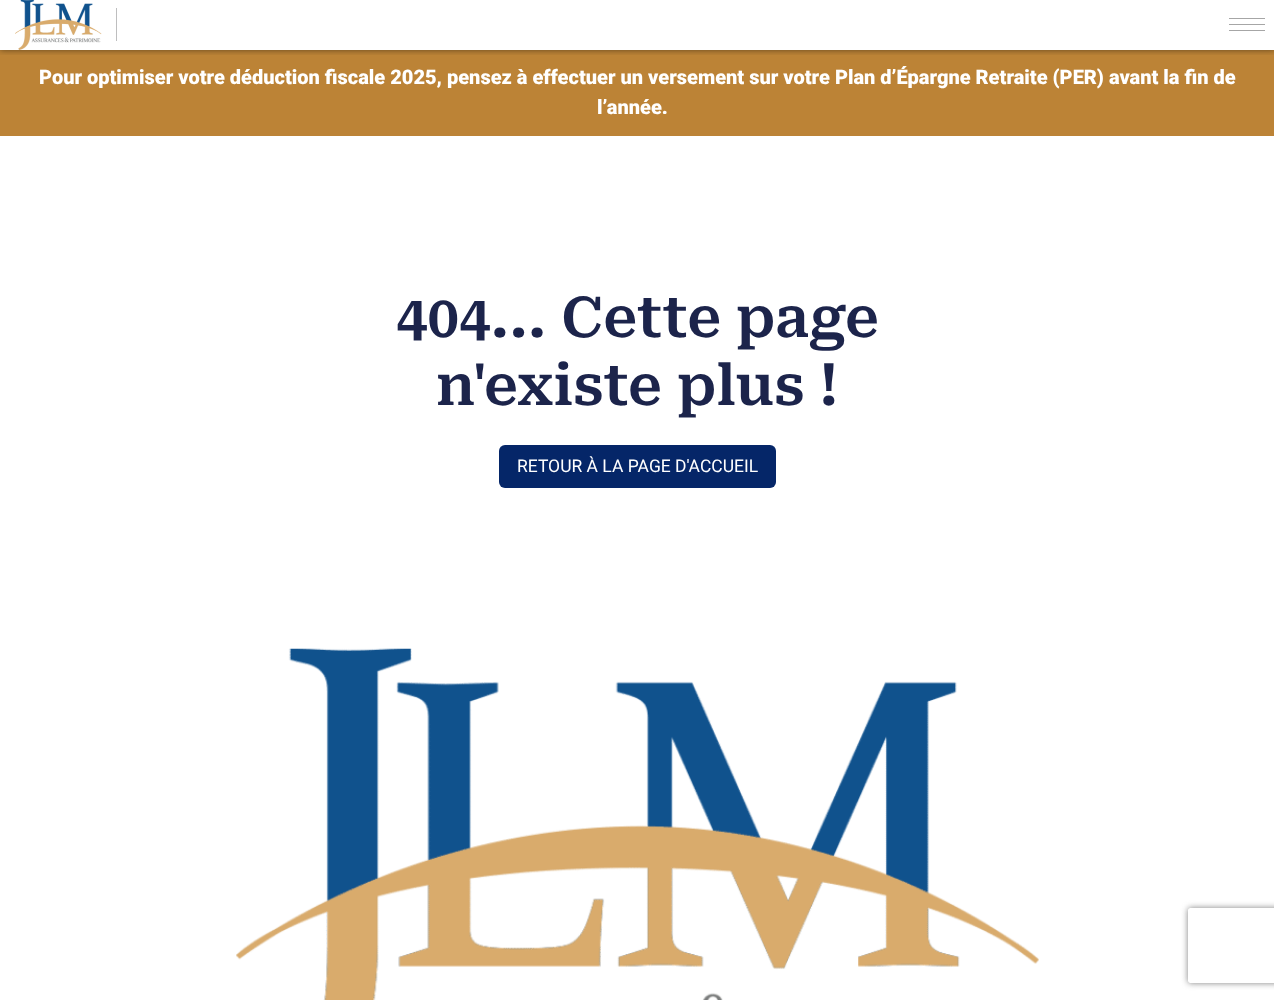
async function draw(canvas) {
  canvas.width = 1274;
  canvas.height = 1000;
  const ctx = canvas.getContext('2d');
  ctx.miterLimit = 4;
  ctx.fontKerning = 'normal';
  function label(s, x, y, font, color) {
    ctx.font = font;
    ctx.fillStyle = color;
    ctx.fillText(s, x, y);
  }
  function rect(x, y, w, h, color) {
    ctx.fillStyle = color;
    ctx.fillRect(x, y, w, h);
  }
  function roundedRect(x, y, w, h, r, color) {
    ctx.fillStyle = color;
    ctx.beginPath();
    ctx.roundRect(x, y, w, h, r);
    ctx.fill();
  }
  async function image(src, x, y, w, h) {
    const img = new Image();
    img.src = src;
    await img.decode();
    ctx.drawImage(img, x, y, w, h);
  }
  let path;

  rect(0, 0, 1274, 1000, '#fff');
  rect(0, 50, 1274, 86, '#bc8336');
  ctx.save();
  ctx.beginPath();
  ctx.rect(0, 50, 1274, 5);
  ctx.clip();
  ctx.fillStyle = '#00000080';
  ctx.filter = 'blur(3px)';
  ctx.beginPath();
  ctx.rect(0, 0, 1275, 50);
  ctx.fill();
  ctx.filter = 'none';
  ctx.restore();
  await image('assets/img1.png', 15, 0, 87, 50);
  rect(116, 8, 1, 33, '#bebebf');
  rect(1229, 18, 36, 1, '#a6a6a6');
  rect(1229, 24, 36, 1, '#a6a6a6');
  rect(1229, 30, 36, 1, '#a6a6a6');
  label('Pour optimiser votre déduction fiscale 2025, pensez à effectuer un versement sur votre Plan d’Épargne Retraite (PER) avant la fin de', 39, 84, '900 20px Roboto', '#fff');
  label('l’année.', 597, 114, '900 20px Roboto', '#fff');
  label('404... Cette page', 396, 337, '600 56.25px Roboto Serif', '#1c244b');
  label('n\'existe plus !', 436, 405, '600 56.25px Roboto Serif', '#1c244b');
  roundedRect(499, 445, 277, 43, 6, '#052668');
  label('RETOUR À LA PAGE D\'ACCUEIL', 517, 472, '17.5px Roboto', '#fff');
  await image('assets/img2.png', 236, 648, 803, 352);
  ctx.save();
  path = new Path2D('M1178 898H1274V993H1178ZM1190.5 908H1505.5C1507 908 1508 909 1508 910.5V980.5C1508 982 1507 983 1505.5 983H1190.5C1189 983 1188 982 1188 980.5V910.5C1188 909 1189 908 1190.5 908Z');
  ctx.clip(path, 'evenodd');
  ctx.fillStyle = '#808080';
  ctx.filter = 'blur(3px)';
  ctx.beginPath();
  ctx.roundRect(1188, 908, 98, 75, 2.5);
  ctx.fill();
  ctx.filter = 'none';
  ctx.restore();
}

draw(document.querySelector('canvas'));
